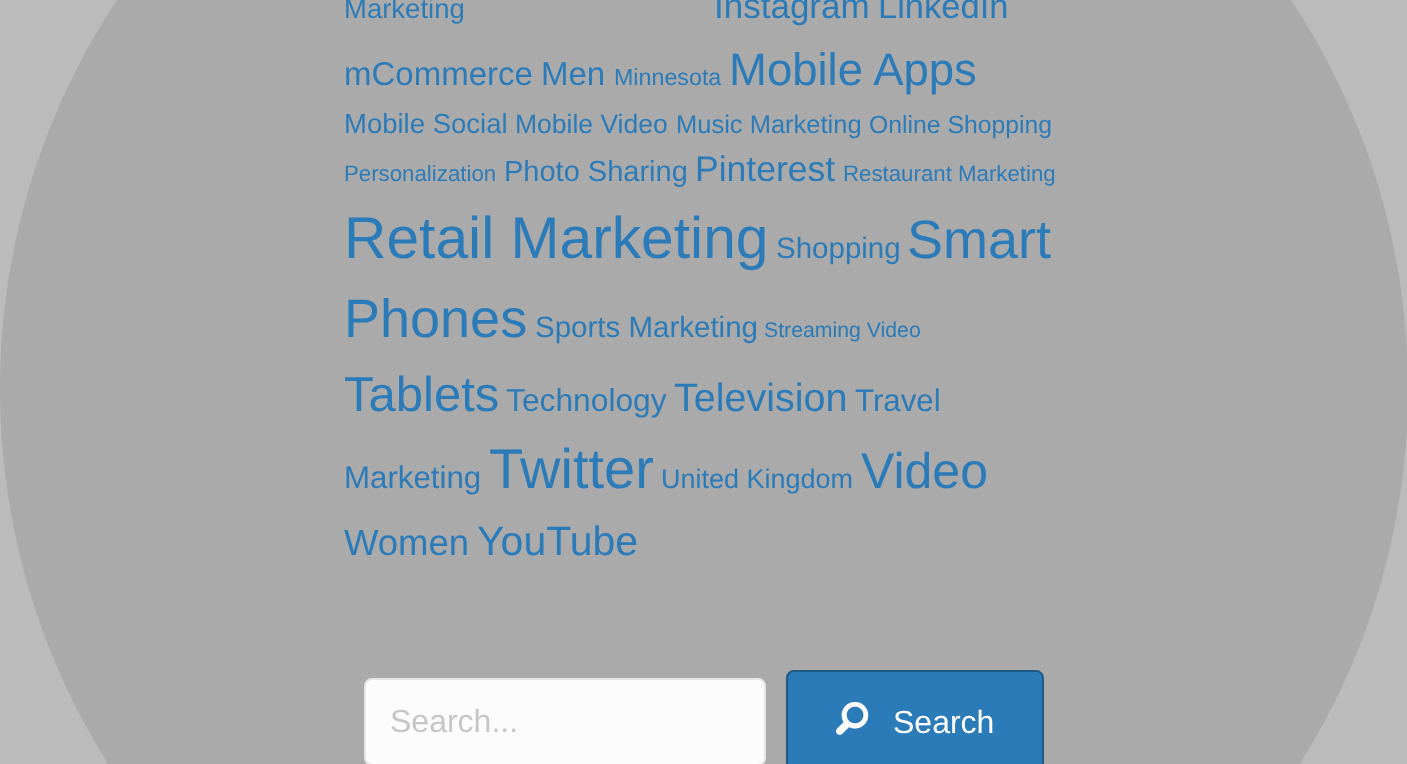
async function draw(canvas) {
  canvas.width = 1407;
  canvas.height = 764;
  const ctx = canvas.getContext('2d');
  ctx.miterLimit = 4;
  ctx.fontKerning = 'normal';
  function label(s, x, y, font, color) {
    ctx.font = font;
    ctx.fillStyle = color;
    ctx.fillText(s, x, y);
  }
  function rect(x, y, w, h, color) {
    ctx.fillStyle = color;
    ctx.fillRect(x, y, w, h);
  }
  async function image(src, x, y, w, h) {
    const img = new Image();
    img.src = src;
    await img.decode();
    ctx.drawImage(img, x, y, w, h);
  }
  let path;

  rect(0, 0, 1407, 764, '#bbb');
  ctx.fillStyle = '#aaa';
  path = new Path2D('M704 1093C1093 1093 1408 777 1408 389C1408 0 1093-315 704-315C315-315 0 0 0 389C0 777 315 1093 704 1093Z');
  ctx.fill(path);
  label('Marketing', 344, 18, '27.5px Liberation Sans', '#2b7bb9');
  label('Instagram', 714, 18, '35px Liberation Sans', '#2b7bb9');
  label('LinkedIn', 878, 18, '34.5px Liberation Sans', '#2b7bb9');
  label('mCommerce', 344, 85, '33px Liberation Sans', '#2b7bb9');
  label('Men', 541, 85, '33px Liberation Sans', '#2b7bb9');
  label('Minnesota', 614, 85, '23.25px Liberation Sans', '#2b7bb9');
  label('Mobile Apps', 729, 85, '45.5px Liberation Sans', '#2b7bb9');
  label('Mobile Social', 344, 133, '27.5px Liberation Sans', '#2b7bb9');
  label('Mobile Video', 515, 133, '26.5px Liberation Sans', '#2b7bb9');
  label('Music Marketing', 676, 133, '25.5px Liberation Sans', '#2b7bb9');
  label('Online Shopping', 869, 133, '24.75px Liberation Sans', '#2b7bb9');
  label('Personalization', 344, 181, '22.25px Liberation Sans', '#2b7bb9');
  label('Photo Sharing', 504, 181, '29px Liberation Sans', '#2b7bb9');
  label('Pinterest', 695, 181, '35.5px Liberation Sans', '#2b7bb9');
  label('Restaurant Marketing', 843, 181, '22.25px Liberation Sans', '#2b7bb9');
  label('Retail Marketing', 344, 258, '58.75px Liberation Sans', '#2b7bb9');
  label('Shopping', 776, 258, '29.5px Liberation Sans', '#2b7bb9');
  label('Smart', 907, 258, '54px Liberation Sans', '#2b7bb9');
  label('Phones', 344, 337, '54px Liberation Sans', '#2b7bb9');
  label('Sports Marketing', 535, 337, '29.5px Liberation Sans', '#2b7bb9');
  label('Streaming Video', 764, 337, '21.25px Liberation Sans', '#2b7bb9');
  label('Tablets', 344, 411, '49px Liberation Sans', '#2b7bb9');
  label('Technology', 506, 411, '31.75px Liberation Sans', '#2b7bb9');
  label('Television', 674, 411, '39.5px Liberation Sans', '#2b7bb9');
  label('Travel', 855, 411, '31.25px Liberation Sans', '#2b7bb9');
  label('Marketing', 344, 488, '31.25px Liberation Sans', '#2b7bb9');
  label('Twitter', 489, 488, '56px Liberation Sans', '#2b7bb9');
  label('United Kingdom', 661, 488, '27px Liberation Sans', '#2b7bb9');
  label('Video', 861, 488, '50px Liberation Sans', '#2b7bb9');
  label('Women', 344, 555, '36.5px Liberation Sans', '#2b7bb9');
  label('YouTube', 477, 555, '41px Liberation Sans', '#2b7bb9');
  ctx.fillStyle = '#fcfcfc';
  ctx.beginPath();
  ctx.roundRect(365, 679, 400, 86, 7);
  ctx.fill();
  ctx.strokeStyle = '#e6e6e6';
  ctx.lineWidth = 2;
  ctx.stroke();
  label('Search...', 390, 732, '32px Liberation Sans', '#c6c6c6');
  ctx.fillStyle = '#2b7bb9';
  ctx.beginPath();
  ctx.roundRect(787, 671, 256, 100, 7);
  ctx.fill();
  ctx.strokeStyle = '#1f5a87';
  ctx.stroke();
  await image('assets/img1.png', 836, 701, 33, 34);
  label('Search', 893, 733, '32px Liberation Sans', '#fff');
}

draw(document.querySelector('canvas'));
